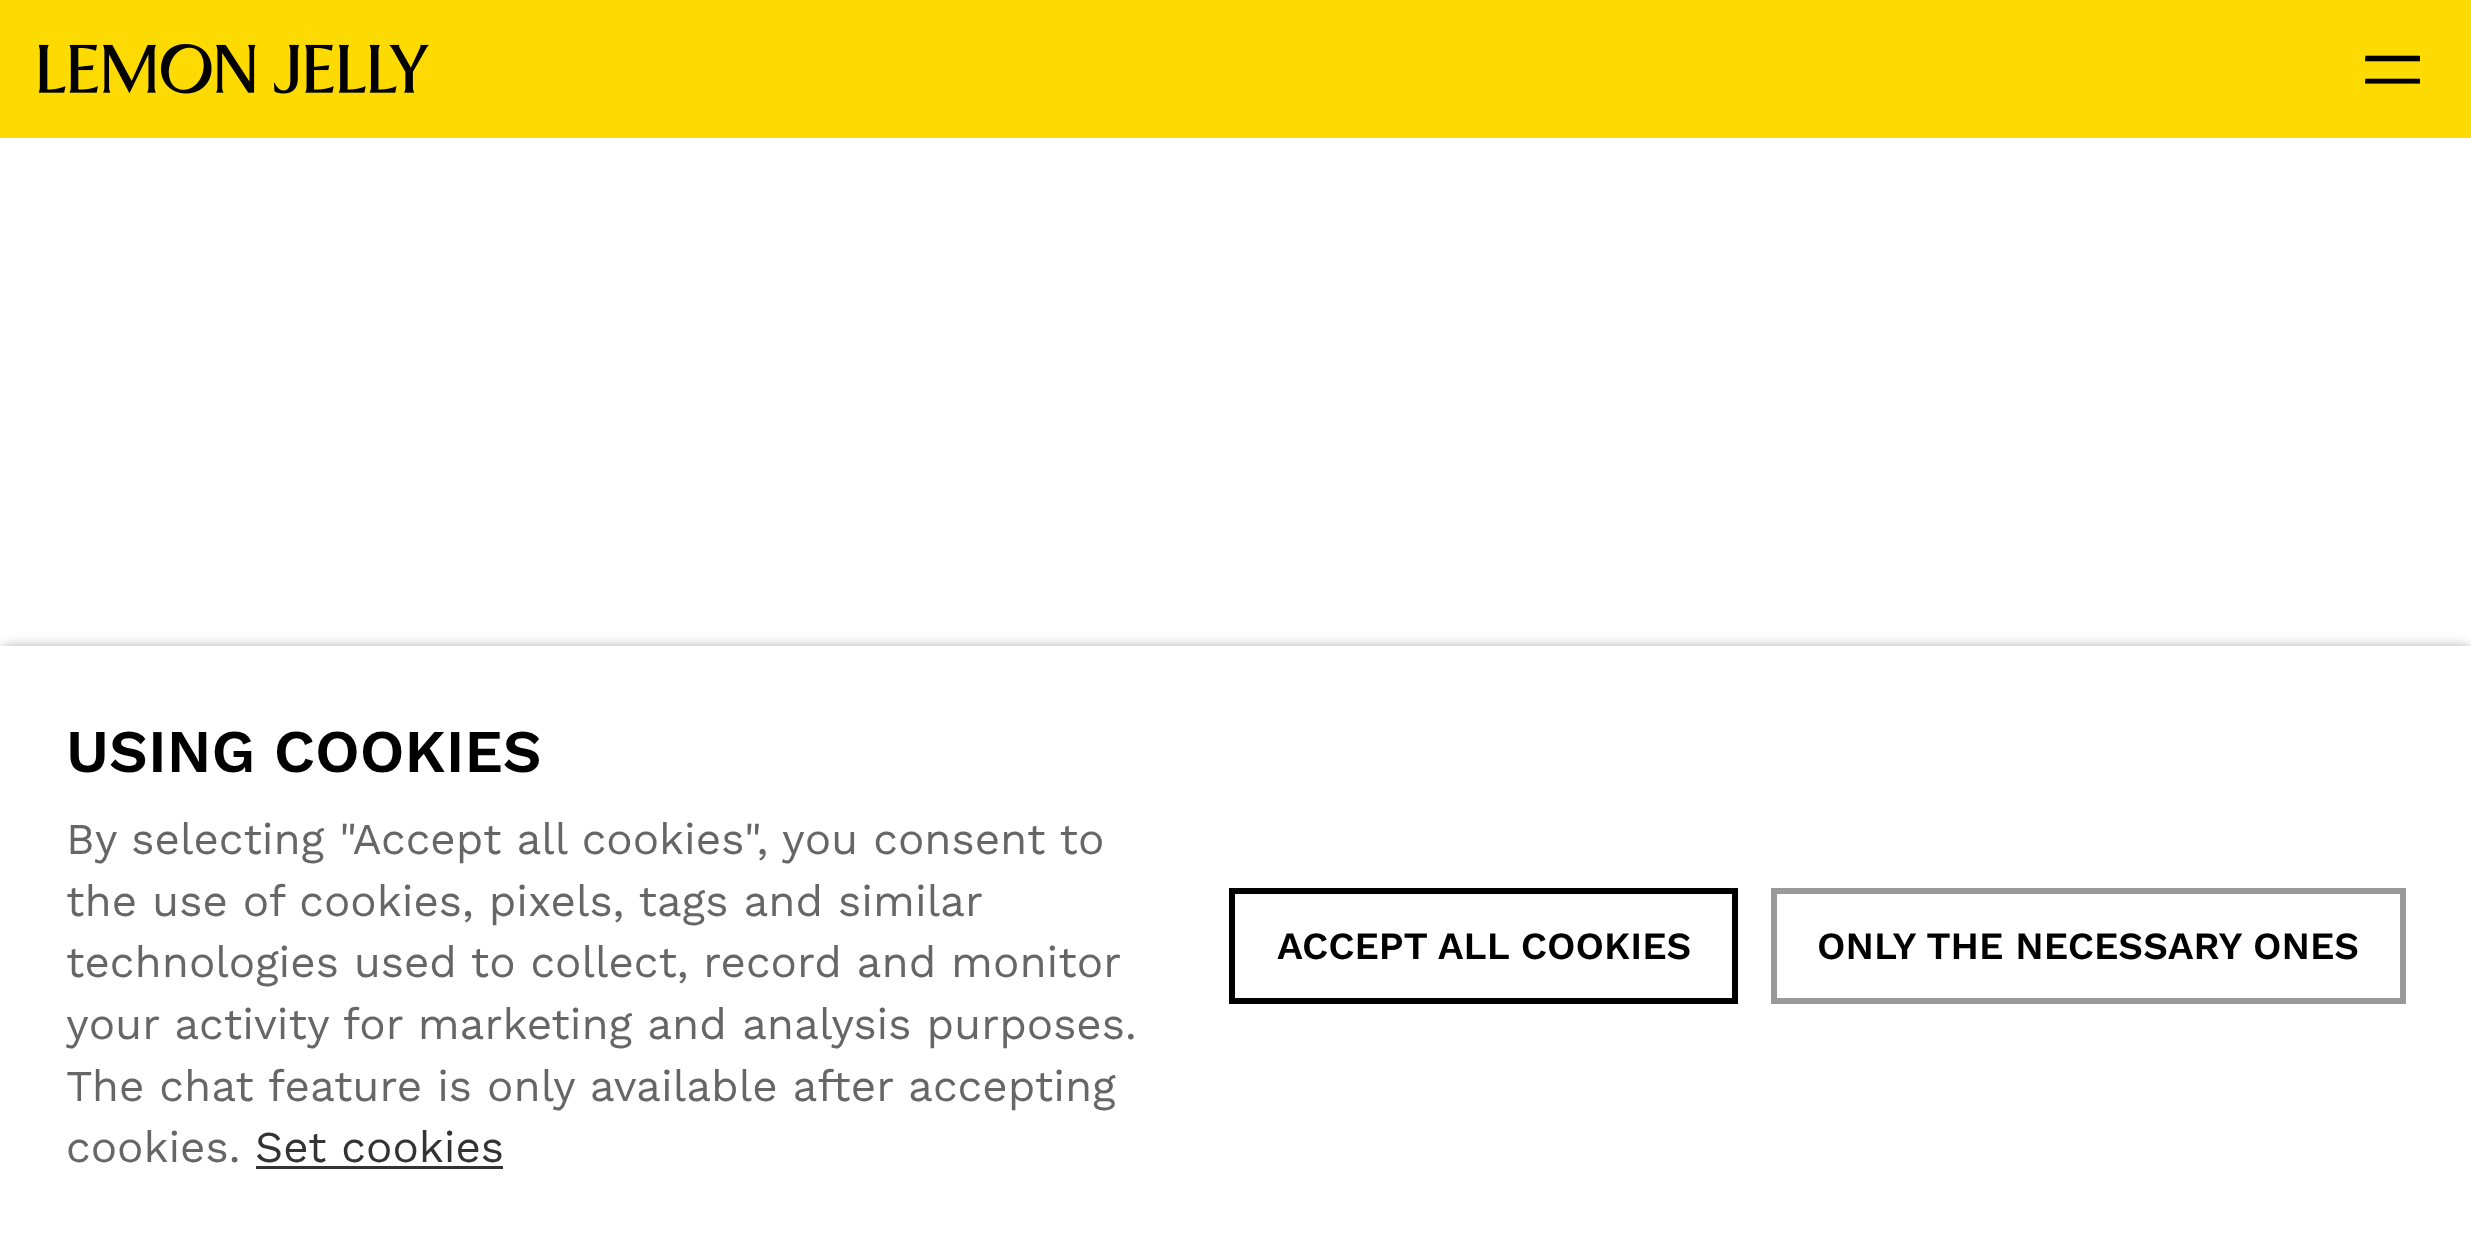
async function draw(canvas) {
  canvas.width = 2471;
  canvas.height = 1245;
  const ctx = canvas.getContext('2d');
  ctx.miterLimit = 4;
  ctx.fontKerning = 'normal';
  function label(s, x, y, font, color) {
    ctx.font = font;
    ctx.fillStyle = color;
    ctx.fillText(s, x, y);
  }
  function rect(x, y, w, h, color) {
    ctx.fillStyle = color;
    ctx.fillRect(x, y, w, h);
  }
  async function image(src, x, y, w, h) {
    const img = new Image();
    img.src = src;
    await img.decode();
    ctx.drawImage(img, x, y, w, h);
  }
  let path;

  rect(0, 0, 2471, 1245, '#fff');
  rect(0, 0, 2471, 138, '#fdda00');
  await image('assets/img1.png', 39, 44, 390, 50);
  ctx.fillStyle = '#000';
  path = new Path2D('M2366 56L2365 61H2420V56ZM2366 79L2365 83H2420V79Z');
  ctx.fill(path);
  path = new Path2D('M2365.5 56V61H2419.5V56ZM2365.5 79V83.5H2419.5V79Z');
  ctx.strokeStyle = '#000';
  ctx.lineWidth = 0.6;
  ctx.stroke(path);
  ctx.fillStyle = '#00000080';
  ctx.filter = 'blur(7px)';
  ctx.beginPath();
  ctx.rect(3, 649, 2467, 594);
  ctx.fill();
  ctx.filter = 'none';
  rect(0, 646, 2471, 599, '#fff');
  label('USING COOKIES', 66, 772, '600 60.5px Work Sans', '#000');
  label('By selecting "Accept all cookies", you consent to', 66, 854, '44px Work Sans', '#666');
  label('the use of cookies, pixels, tags and similar', 66, 916, '44px Work Sans', '#666');
  ctx.wordSpacing = '-0.25px';
  label('technologies used to collect, record and monitor', 66, 977, '44px Work Sans', '#666');
  ctx.wordSpacing = '0px';
  label('your activity for marketing and analysis purposes.', 66, 1039, '44px Work Sans', '#666');
  label('The chat feature is only available after accepting', 66, 1101, '44px Work Sans', '#666');
  label('cookies.', 66, 1162, '44px Work Sans', '#666');
  label('Set cookies', 255, 1162, '44px Work Sans', '#333');
  rect(256, 1166, 247, 3, '#333');
  ctx.lineWidth = 6;
  ctx.strokeRect(1232, 891, 503, 110);
  label('ACCEPT ALL COOKIES', 1277, 959, '600 38.5px Work Sans', '#000');
  ctx.strokeStyle = '#999';
  ctx.strokeRect(1774, 891, 629, 110);
  label('ONLY THE NECESSARY ONES', 1817, 959, '600 38.5px Work Sans', '#000');
}

draw(document.querySelector('canvas'));
